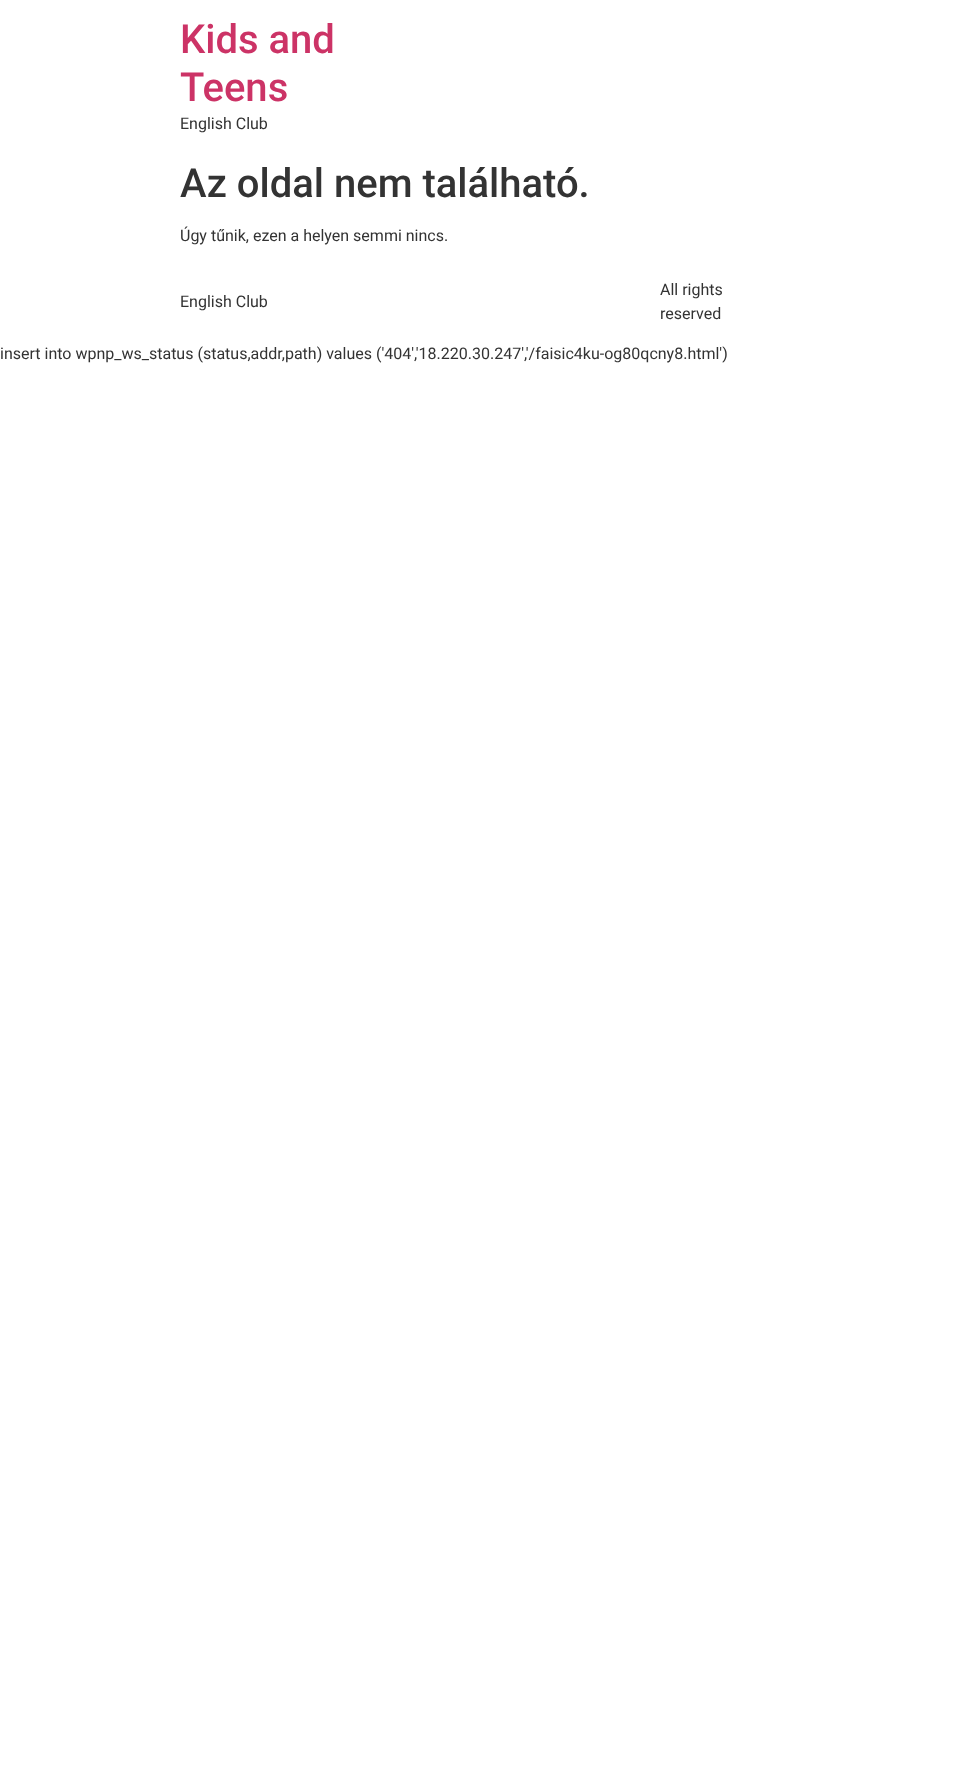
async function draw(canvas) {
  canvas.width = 960;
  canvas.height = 1788;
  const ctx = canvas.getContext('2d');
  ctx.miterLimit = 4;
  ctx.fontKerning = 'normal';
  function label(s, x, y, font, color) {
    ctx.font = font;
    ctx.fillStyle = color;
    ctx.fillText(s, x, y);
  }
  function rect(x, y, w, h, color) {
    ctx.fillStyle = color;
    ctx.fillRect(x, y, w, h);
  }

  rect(0, 0, 960, 1788, '#fff');
  label('Kids and', 180, 53, '500 40px Roboto', '#c36');
  label('Teens', 180, 101, '500 40px Roboto', '#c36');
  label('English Club', 180, 129, '16px Roboto', '#333');
  label('Az oldal nem található.', 180, 197, '500 40px Roboto', '#333');
  label('Úgy tűnik, ezen a helyen semmi nincs.', 180, 241, '16px Roboto', '#333');
  label('English Club', 180, 307, '16px Roboto', '#333');
  label('All rights', 660, 295, '16px Roboto', '#333');
  label('reserved', 660, 319, '16px Roboto', '#333');
  label('insert into wpnp_ws_status (status,addr,path) values (\'404\',\'18.220.30.247\',\'/faisic4ku-og80qcny8.html\')', 0, 359, '16px Roboto', '#333');
}

draw(document.querySelector('canvas'));
